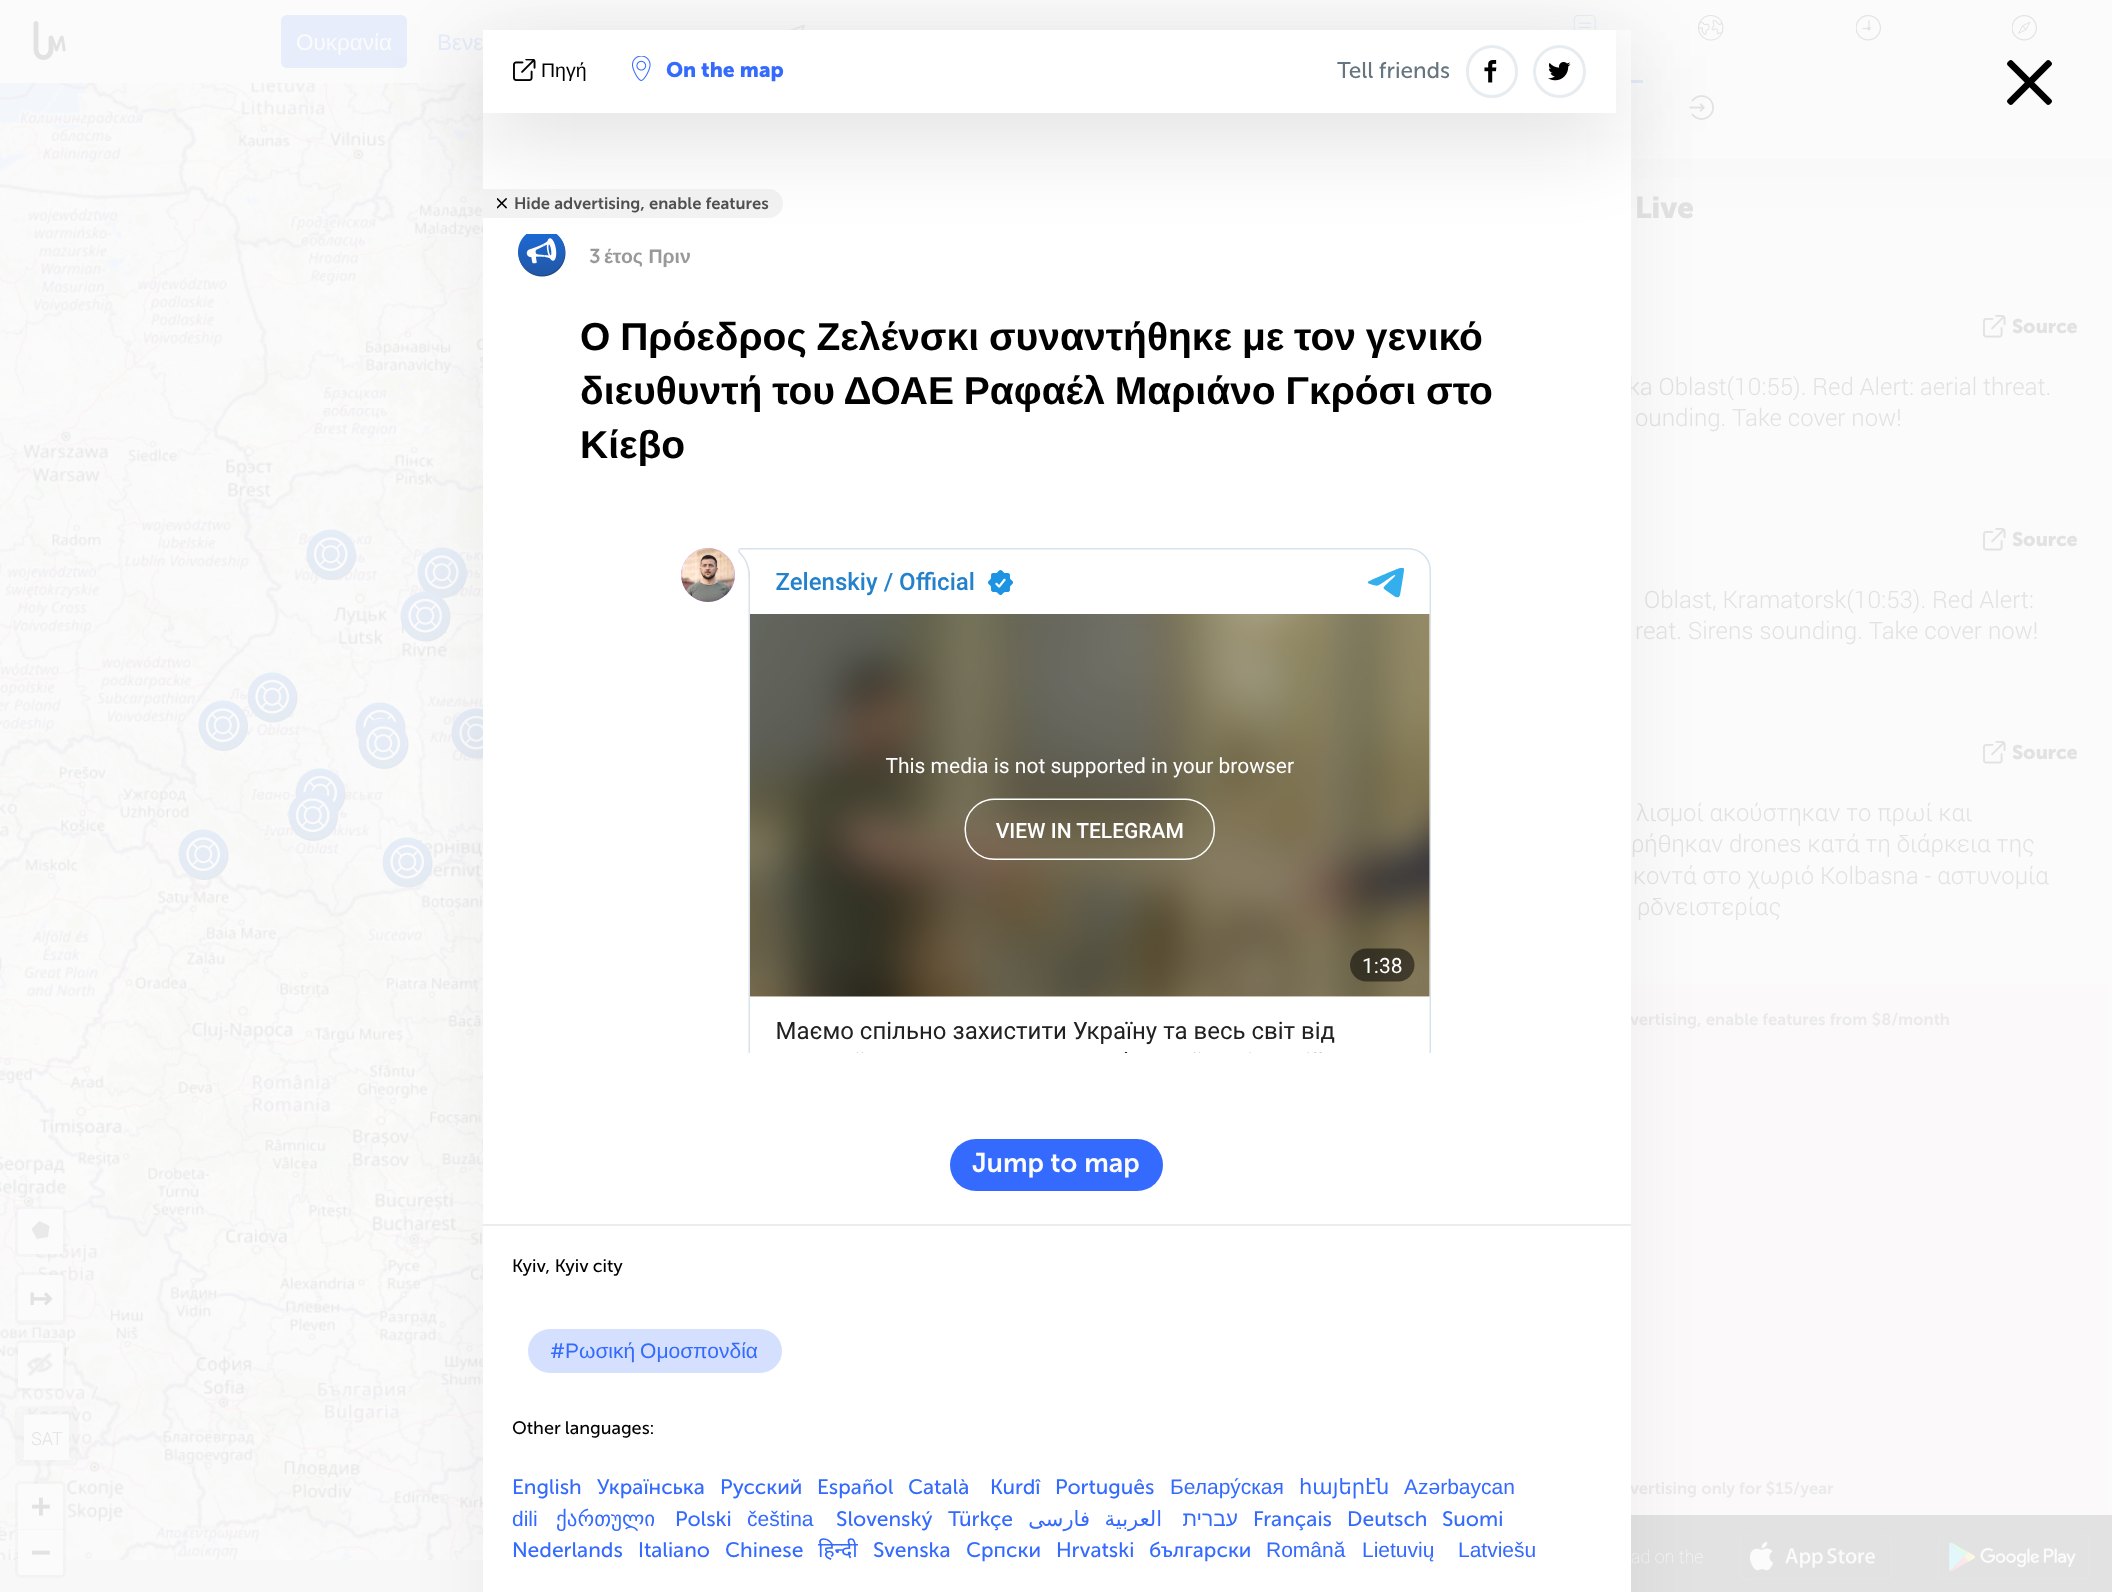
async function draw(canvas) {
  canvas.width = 2112;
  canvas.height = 1592;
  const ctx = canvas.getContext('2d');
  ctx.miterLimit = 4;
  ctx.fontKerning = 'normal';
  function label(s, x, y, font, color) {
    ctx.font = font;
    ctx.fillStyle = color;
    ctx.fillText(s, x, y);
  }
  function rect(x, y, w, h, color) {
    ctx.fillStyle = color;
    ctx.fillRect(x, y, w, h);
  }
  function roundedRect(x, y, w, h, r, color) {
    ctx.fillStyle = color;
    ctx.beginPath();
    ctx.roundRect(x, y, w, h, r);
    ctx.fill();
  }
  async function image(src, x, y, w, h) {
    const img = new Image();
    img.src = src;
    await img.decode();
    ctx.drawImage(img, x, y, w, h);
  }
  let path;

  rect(0, 0, 2112, 1592, '#f8f8f8');
  rect(0, 0, 1520, 83, '#fbfbfb');
  await image('assets/img1.png', 33, 21, 33, 39);
  await image('assets/img2.png', 790, 24, 15, 6);
  roundedRect(281, 15, 126, 53, 6, '#e7edfb');
  label('Ουκρανία', 296, 50, '22.5px Liberation Sans', '#fbfbfb');
  label('Βενε', 437, 50, '22.5px Liberation Sans', '#e7edfb');
  await image('assets/img3.png', 0, 83, 168, 325);
  await image('assets/img4.png', 168, 83, 315, 325);
  await image('assets/img5.png', 0, 408, 168, 384);
  await image('assets/img6.png', 168, 408, 315, 384);
  await image('assets/img7.png', 0, 792, 168, 384);
  await image('assets/img8.png', 168, 792, 315, 384);
  await image('assets/img9.png', 0, 1176, 168, 384);
  await image('assets/img10.png', 168, 1176, 315, 384);
  await image('assets/img11.png', 306, 529, 50, 51);
  await image('assets/img12.png', 417, 547, 50, 51);
  await image('assets/img13.png', 400, 591, 51, 51);
  await image('assets/img15.png', 247, 672, 51, 51);
  await image('assets/img14.png', 198, 700, 50, 51);
  await image('assets/img16.png', 355, 702, 51, 38);
  await image('assets/img17.png', 451, 708, 32, 51);
  await image('assets/img18.png', 358, 718, 51, 51);
  await image('assets/img19.png', 295, 768, 51, 45);
  await image('assets/img20.png', 288, 790, 50, 51);
  await image('assets/img21.png', 178, 829, 51, 51);
  await image('assets/img22.png', 382, 837, 51, 51);
  ctx.beginPath();
  ctx.roundRect(16.5, 1207.5, 48, 48, 4.5);
  ctx.strokeStyle = '#e2e2e233';
  ctx.lineWidth = 3;
  ctx.stroke();
  roundedRect(18, 1209, 45, 45, 3, '#fbfbfb');
  await image('assets/img23.png', 31, 1221, 19, 18);
  ctx.beginPath();
  ctx.roundRect(16.5, 1273.5, 48, 50, 4.5);
  ctx.stroke();
  ctx.beginPath();
  ctx.roundRect(18, 1275, 45, 47, [3, 3, 0, 0]);
  ctx.fill();
  rect(18, 1320, 45, 2, '#f6f6f6');
  label('↦', 29, 1308, 'bold 28px DejaVu Sans', '#e2e2e2');
  ctx.beginPath();
  ctx.roundRect(16.5, 1341.5, 48, 48, 4.5);
  ctx.stroke();
  roundedRect(18, 1343, 45, 45, 3, '#fbfbfb');
  await image('assets/img24.png', 26, 1352, 27, 24);
  ctx.beginPath();
  ctx.roundRect(16.5, 1407.5, 60, 57, 4.5);
  ctx.stroke();
  ctx.beginPath();
  ctx.roundRect(19.5, 1410.5, 54, 51, 4.5);
  ctx.stroke();
  path = new Path2D('M24 1414H69V1460H24V1456Z');
  ctx.fill(path);
  rect(23, 1412, 48, 3, '#e2e2e233');
  rect(69, 1413, 3, 45, '#e2e2e233');
  rect(21, 1413, 3, 45, '#e2e2e233');
  label('SAT', 31, 1445, '300 18px Roboto', '#e2e2e2');
  ctx.beginPath();
  ctx.roundRect(16.5, 1482.5, 48, 94, 4.5);
  ctx.stroke();
  ctx.fillStyle = '#fbfbfb';
  ctx.beginPath();
  ctx.roundRect(18, 1484, 45, 46, [3, 3, 0, 0]);
  ctx.fill();
  rect(18, 1529, 45, 1, '#f6f6f6');
  label('+', 31, 1517, 'bold 33px DejaVu Sans Mono', '#e2e2e2');
  ctx.fillStyle = '#fbfbfb';
  ctx.beginPath();
  ctx.roundRect(18, 1530, 45, 45, [0, 0, 3, 3]);
  ctx.fill();
  label('−', 31, 1563, 'bold 33px DejaVu Sans Mono', '#e2e2e2');
  rect(1520, 0, 592, 1515, '#fbfbfb');
  rect(1631, 80, 12, 3, '#e7edfb');
  await image('assets/img25.png', 1573, 15, 23, 15);
  await image('assets/img26.png', 1698, 15, 26, 26);
  await image('assets/img27.png', 1856, 15, 25, 26);
  await image('assets/img28.png', 2012, 15, 25, 26);
  await image('assets/img29.png', 1689, 95, 25, 25);
  await image('assets/img30.png', 1631, 159, 481, 84);
  label('Live', 1635, 218, 'bold 30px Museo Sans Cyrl', '#e2e2e2');
  await image('assets/img31.png', 1983, 315, 23, 23);
  label('Source', 2012, 333, 'bold 19.5px Museo Sans Cyrl', '#e2e2e2');
  label('ka Oblast(10:55). Red Alert: aerial threat.', 1628, 395, '300 24px Roboto', '#e2e2e2');
  label('ounding. Take cover now!', 1635, 426, '300 24px Roboto', '#e2e2e2');
  await image('assets/img31.png', 1983, 528, 23, 23);
  label('Source', 2012, 546, 'bold 19.5px Museo Sans Cyrl', '#e2e2e2');
  label('Oblast, Kramatorsk(10:53). Red Alert:', 1644, 608, '300 24px Roboto', '#e2e2e2');
  label('reat. Sirens sounding. Take cover now!', 1635, 639, '300 24px Roboto', '#e2e2e2');
  await image('assets/img31.png', 1983, 741, 23, 23);
  label('Source', 2012, 759, 'bold 19.5px Museo Sans Cyrl', '#e2e2e2');
  label('λισμοί ακούστηκαν το πρωί και', 1636, 821, '300 24px Roboto', '#e2e2e2');
  label('ρήθηκαν drones κατά τη διάρκεια της', 1631, 852, '300 24px Roboto', '#e2e2e2');
  label('κοντά στο χωριό Kolbasna - αστυνομία', 1633, 884, '300 24px Roboto', '#e2e2e2');
  label('ρδνειστερίας', 1637, 915, '300 24px Roboto', '#e2e2e2');
  roundedRect(1520, 983, 588, 594, 5, '#fbf9f9');
  label('vertising, enable features from $8/month', 1630, 1025, '600 16.5px Museo Sans Cyrl', '#eaeaea');
  label('vertising only for $15/year', 1630, 1494, '600 16.5px Museo Sans Cyrl', '#eaeaea');
  rect(1631, 1515, 481, 77, '#e2e2e2');
  label('ad on the', 1631, 1563, '100 18px Roboto', '#fbfbfb');
  await image('assets/img32.png', 1740, 1535, 152, 45);
  await image('assets/img33.png', 1938, 1535, 152, 45);
  ctx.fillStyle = '#0000000d';
  ctx.filter = 'blur(37.5px)';
  ctx.beginPath();
  ctx.rect(483, 68, 1148, 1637);
  ctx.fill();
  ctx.filter = 'none';
  rect(483, 30, 1148, 1562, '#fff');
  ctx.fillStyle = '#f3f3f3';
  ctx.beginPath();
  ctx.roundRect(483, 189, 300, 29, [0, 14.5, 14.5, 0]);
  ctx.fill();
  await image('assets/img39.png', 497, 198, 10, 11);
  await image('assets/img40.png', 518, 234, 48, 43);
  ctx.fillStyle = '#100f0f24';
  ctx.filter = 'blur(45px)';
  ctx.beginPath();
  ctx.rect(483, 53, 1133, 82);
  ctx.fill();
  ctx.filter = 'none';
  rect(483, 30, 1133, 83, '#fff');
  await image('assets/img34.png', 513, 59, 23, 22);
  label('Πηγή', 541, 77, '19.5px Liberation Sans', '#000');
  await image('assets/img35.png', 632, 56, 19, 25);
  label('On the map', 666, 77, 'bold 21px Museo Sans Cyrl', '#346afe');
  label('Tell friends', 1337, 78, '22.5px Museo Sans Cyrl', '#66757f');
  await image('assets/img36.png', 1484, 60, 13, 23);
  ctx.beginPath();
  ctx.roundRect(1467.5, 46.5, 49, 50, 24.5);
  ctx.strokeStyle = '#e6ecef';
  ctx.stroke();
  await image('assets/img37.png', 1548, 62, 23, 19);
  ctx.beginPath();
  ctx.arc(1559.5, 71.5, 25, 0, 2 * Math.PI);
  ctx.stroke();
  await image('assets/img38.png', 2007, 60, 45, 45);
  label('Hide advertising, enable features', 514, 209, '600 16.5px Museo Sans Cyrl', '#505050');
  label('3', 589, 263, 'bold 19.5px "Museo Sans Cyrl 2"', '#999');
  label('έτος Πριν', 604, 263, 'bold 19.5px Liberation Sans', '#999');
  ctx.wordSpacing = '-1px';
  label('Ο Πρόεδρος Ζελένσκι συναντήθηκε με τον γενικό', 580, 350, 'bold 39px Liberation Sans', '#000');
  label('διευθυντή του ΔΟΑΕ Ραφαέλ Μαριάνο Γκρόσι στο', 580, 404, 'bold 39px Liberation Sans', '#000');
  ctx.wordSpacing = '0px';
  label('Κίεβο', 580, 458, 'bold 39px Liberation Sans', '#000');
  await image('assets/img41.png', 681, 548, 750, 505);
  rect(483, 1224, 1148, 2, '#ececec');
  roundedRect(950, 1139, 213, 52, 26, '#346afe');
  label('Jump to map', 972, 1172, '600 27px Museo Sans Cyrl', '#fbfbfb');
  label('Kyiv, Kyiv city', 512, 1272, '18px Museo Sans Cyrl', '#000');
  roundedRect(528, 1329, 254, 44, 22, '#d5e0ff');
  label('#', 550, 1358, '21px Museo Sans Cyrl', '#346afe');
  ctx.wordSpacing = '-1px';
  label('Ρωσική Ομοσπονδία', 565, 1358, '21px Liberation Sans', '#346afe');
  ctx.wordSpacing = '0px';
  label('Other languages:', 512, 1434, '18px Museo Sans Cyrl', '#000');
  label('English', 512, 1494, '21px Museo Sans Cyrl', '#346afe');
  label('Українська', 597, 1494, '21px Museo Sans Cyrl', '#346afe');
  label('Русский', 720, 1494, '21px Museo Sans Cyrl', '#346afe');
  label('Español', 817, 1494, '21px Museo Sans Cyrl', '#346afe');
  label('Català', 908, 1494, '21px Museo Sans Cyrl', '#346afe');
  label('Kurdî', 990, 1494, '21px Museo Sans Cyrl', '#346afe');
  label('Português', 1055, 1494, '21px Museo Sans Cyrl', '#346afe');
  label('Белару́ская', 1170, 1494, '21px Liberation Sans', '#346afe');
  label('հայերէն', 1299, 1494, '21px DejaVu Sans', '#346afe');
  label('Azərbaycan', 1404, 1494, '21px Liberation Sans', '#346afe');
  label('dili', 512, 1526, '21px Liberation Sans', '#346afe');
  label('ქართული', 556, 1526, '21px DejaVu Sans', '#346afe');
  label('Polski', 675, 1526, '21px Museo Sans Cyrl', '#346afe');
  label('čeština', 747, 1526, '21px Liberation Sans', '#346afe');
  label('Slovenský', 836, 1526, '21px Museo Sans Cyrl', '#346afe');
  label('Türkçe', 948, 1526, '21px Museo Sans Cyrl', '#346afe');
  ctx.direction = 'rtl';
  label('فارسی', 1090, 1526, '21px DejaVu Sans', '#346afe');
  label('العربية', 1162, 1526, '21px DejaVu Sans', '#346afe');
  label('עברית', 1238, 1526, '21px Liberation Sans', '#346afe');
  ctx.direction = 'ltr';
  label('Français', 1253, 1526, '21px Museo Sans Cyrl', '#346afe');
  label('Deutsch', 1347, 1526, '21px Museo Sans Cyrl', '#346afe');
  label('Suomi', 1442, 1526, '21px Museo Sans Cyrl', '#346afe');
  label('Nederlands', 512, 1557, '21px Museo Sans Cyrl', '#346afe');
  label('Italiano', 638, 1557, '21px Museo Sans Cyrl', '#346afe');
  label('Chinese', 725, 1557, '21px Museo Sans Cyrl', '#346afe');
  label('हिन्दी', 818, 1557, '21px Noto Sans', '#346afe');
  label('Svenska', 873, 1557, '21px Museo Sans Cyrl', '#346afe');
  label('Српски', 966, 1557, '21px Museo Sans Cyrl', '#346afe');
  label('Hrvatski', 1056, 1557, '21px Museo Sans Cyrl', '#346afe');
  label('български', 1149, 1557, '21px Museo Sans Cyrl', '#346afe');
  label('Română', 1266, 1557, '21px Liberation Sans', '#346afe');
  label('Lietuvių', 1362, 1557, '21px Liberation Sans', '#346afe');
  label('Latviešu', 1458, 1557, '21px Liberation Sans', '#346afe');
}

draw(document.querySelector('canvas'));
